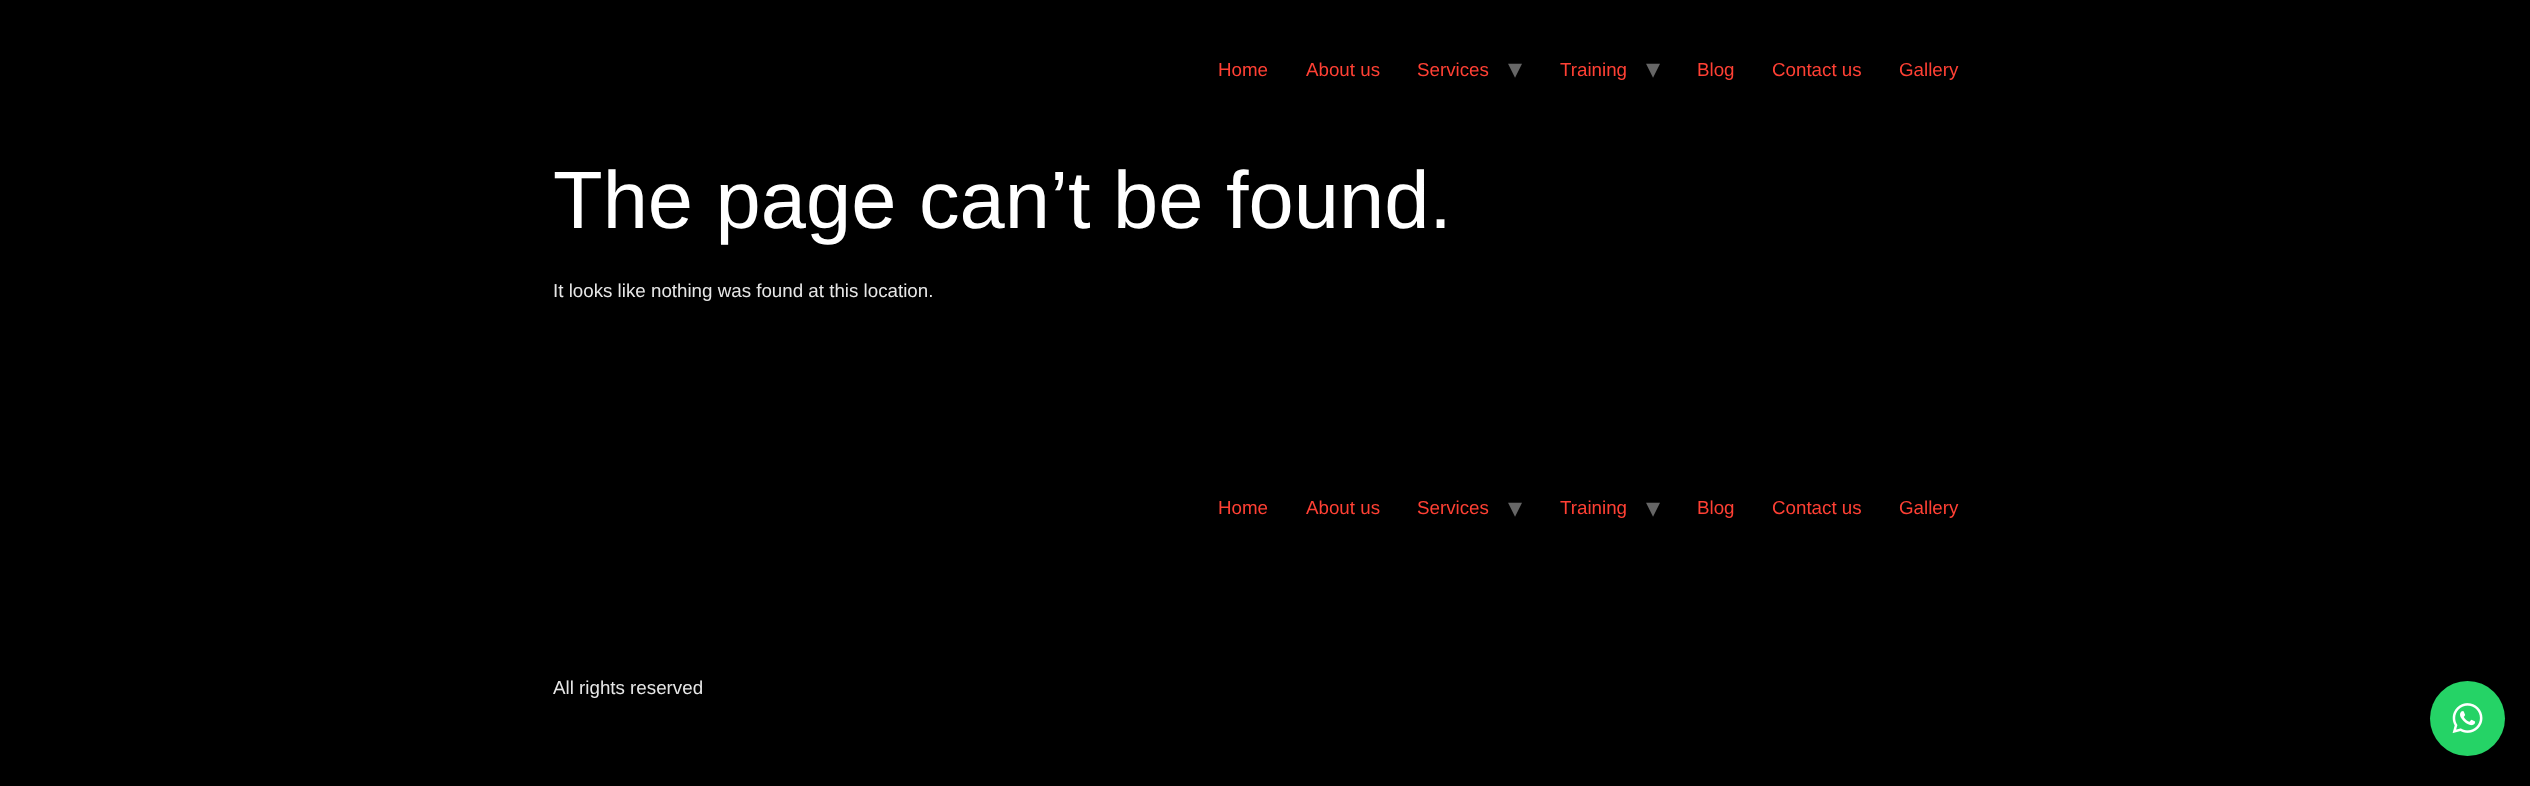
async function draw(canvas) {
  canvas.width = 2530;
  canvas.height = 786;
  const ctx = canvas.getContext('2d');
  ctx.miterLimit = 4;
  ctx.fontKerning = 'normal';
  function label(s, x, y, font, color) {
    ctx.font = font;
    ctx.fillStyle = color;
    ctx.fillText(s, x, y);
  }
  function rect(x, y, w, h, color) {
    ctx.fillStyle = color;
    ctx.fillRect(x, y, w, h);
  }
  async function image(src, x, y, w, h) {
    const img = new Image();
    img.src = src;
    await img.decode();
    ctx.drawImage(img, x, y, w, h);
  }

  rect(0, 0, 2530, 786, '#000');
  label('Home', 1218, 76, '18.75px Liberation Sans', '#ff4034');
  label('About us', 1306, 76, '18.75px Liberation Sans', '#ff4034');
  label('Services', 1417, 76, '18.75px Liberation Sans', '#ff4034');
  label('▾', 1508, 78, '28px DejaVu Sans', '#666');
  label('Training', 1560, 76, '18.75px Liberation Sans', '#ff4034');
  label('▾', 1646, 78, '28px DejaVu Sans', '#666');
  label('Blog', 1697, 76, '18.75px Liberation Sans', '#ff4034');
  label('Contact us', 1772, 76, '18.75px Liberation Sans', '#ff4034');
  label('Gallery', 1899, 76, '18.75px Liberation Sans', '#ff4034');
  label('The page can’t be found.', 553, 228, '81.25px Liberation Sans', '#fff');
  label('It looks like nothing was found at this location.', 553, 297, '18.75px Liberation Sans', '#e7e7e7');
  label('Home', 1218, 514, '18.75px Liberation Sans', '#ff4034');
  label('About us', 1306, 514, '18.75px Liberation Sans', '#ff4034');
  label('Services', 1417, 514, '18.75px Liberation Sans', '#ff4034');
  label('▾', 1508, 517, '28px DejaVu Sans', '#666');
  label('Training', 1560, 514, '18.75px Liberation Sans', '#ff4034');
  label('▾', 1646, 517, '28px DejaVu Sans', '#666');
  label('Blog', 1697, 514, '18.75px Liberation Sans', '#ff4034');
  label('Contact us', 1772, 514, '18.75px Liberation Sans', '#ff4034');
  label('Gallery', 1899, 514, '18.75px Liberation Sans', '#ff4034');
  label('All rights reserved', 553, 694, '18.75px Liberation Sans', '#e7e7e7');
  ctx.fillStyle = '#25d366';
  ctx.beginPath();
  ctx.arc(2467.5, 718.5, 37.5, 0, 2 * Math.PI);
  ctx.fill();
  await image('assets/img1.png', 2452, 703, 31, 31);
}

draw(document.querySelector('canvas'));
